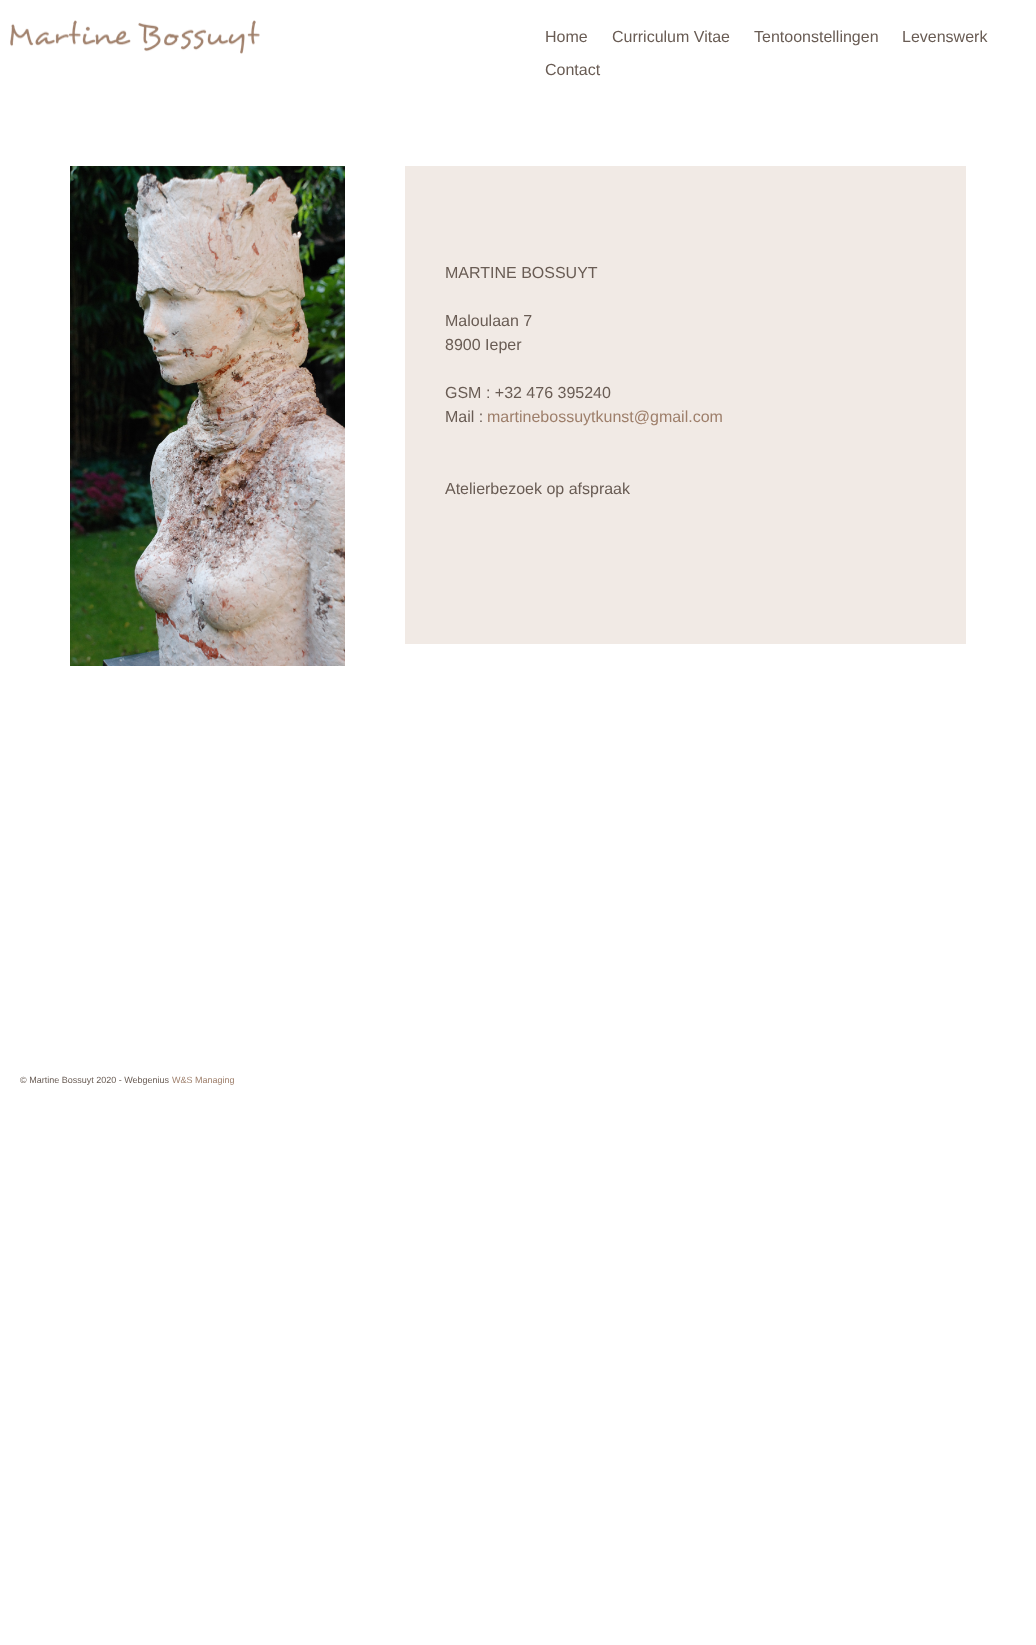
async function draw(canvas) {
  canvas.width = 1036;
  canvas.height = 1645;
  const ctx = canvas.getContext('2d');
  ctx.miterLimit = 4;
  ctx.fontKerning = 'normal';
  function label(s, x, y, font, color) {
    ctx.font = font;
    ctx.fillStyle = color;
    ctx.fillText(s, x, y);
  }
  function rect(x, y, w, h, color) {
    ctx.fillStyle = color;
    ctx.fillRect(x, y, w, h);
  }
  async function image(src, x, y, w, h) {
    const img = new Image();
    img.src = src;
    await img.decode();
    ctx.drawImage(img, x, y, w, h);
  }

  rect(0, 0, 1036, 1645, '#fff');
  await image('assets/img1.png', 10, 20, 250, 34);
  label('Home', 545, 42, '16px Liberation Sans', '#695c54');
  label('Curriculum Vitae', 612, 42, '16px Liberation Sans', '#695c54');
  label('Tentoonstellingen', 754, 42, '16px Liberation Sans', '#695c54');
  label('Levenswerk', 902, 42, '16px Liberation Sans', '#695c54');
  label('Contact', 545, 75, '16px Liberation Sans', '#695c54');
  await image('assets/img2.png', 70, 166, 275, 500);
  rect(405, 166, 561, 478, '#f1eae5');
  label('MARTINE BOSSUYT', 445, 278, '16px Liberation Sans', '#695c54');
  label('Maloulaan 7', 445, 326, '16px Liberation Sans', '#695c54');
  label('8900 Ieper', 445, 350, '16px Liberation Sans', '#695c54');
  label('GSM : +32 476 395240', 445, 398, '16px Liberation Sans', '#695c54');
  label('Mail :', 445, 422, '16px Liberation Sans', '#695c54');
  label('martinebossuytkunst@gmail.com', 487, 422, '16px Liberation Sans', '#9e7f6b');
  label('Atelierbezoek op afspraak', 445, 494, '16px Liberation Sans', '#695c54');
  label('© Martine Bossuyt 2020 - Webgenius', 20, 1083, '9px Liberation Sans', '#695c54');
  label('W&S Managing', 172, 1083, '9px Liberation Sans', '#9e7f6b');
}

draw(document.querySelector('canvas'));
